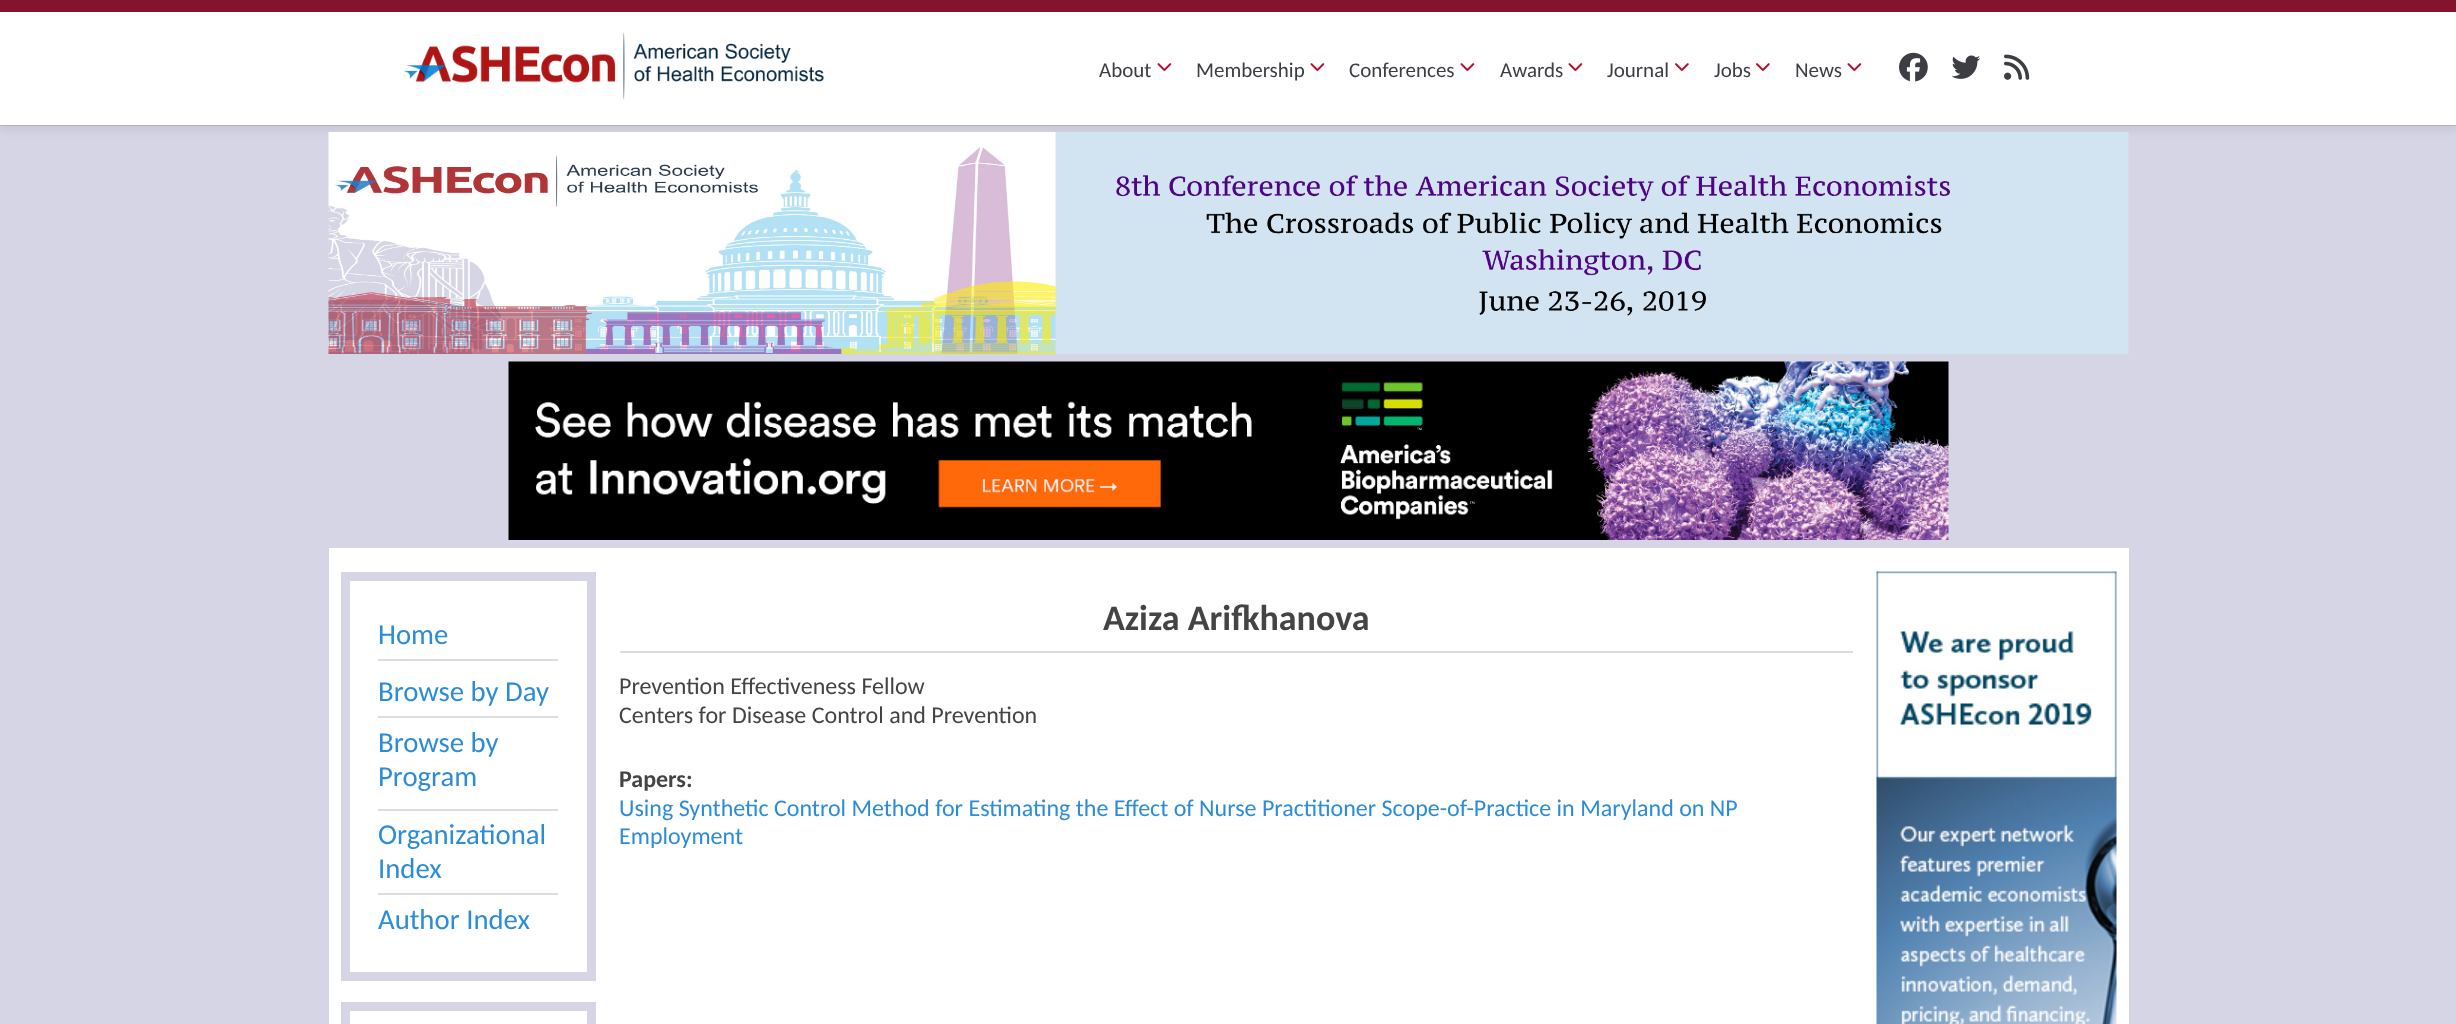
async function draw(canvas) {
  canvas.width = 2456;
  canvas.height = 1024;
  const ctx = canvas.getContext('2d');
  ctx.miterLimit = 4;
  ctx.fontKerning = 'normal';
  function label(s, x, y, font, color) {
    ctx.font = font;
    ctx.fillStyle = color;
    ctx.fillText(s, x, y);
  }
  function rect(x, y, w, h, color) {
    ctx.fillStyle = color;
    ctx.fillRect(x, y, w, h);
  }
  async function image(src, x, y, w, h) {
    const img = new Image();
    img.src = src;
    await img.decode();
    ctx.drawImage(img, x, y, w, h);
  }

  rect(0, 0, 2456, 1024, '#d6d5e5');
  rect(0, 125, 2456, 1, '#bcbbca');
  ctx.fillStyle = '#0000000f';
  ctx.filter = 'blur(4.5px)';
  ctx.beginPath();
  ctx.rect(0, 6, 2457, 125);
  ctx.fill();
  ctx.filter = 'none';
  rect(0, 12, 2456, 113, '#fff');
  rect(0, 0, 2456, 12, '#83142c');
  await image('assets/img1.png', 403, 32, 421, 68);
  label('About', 1099, 77, '21px Carlito', '#3c3e44');
  await image('assets/img2.png', 1157, 63, 15, 8);
  label('Membership', 1196, 77, '21px Carlito', '#3c3e44');
  await image('assets/img2.png', 1310, 63, 15, 8);
  label('Conferences', 1349, 77, '21px Carlito', '#3c3e44');
  await image('assets/img2.png', 1460, 63, 15, 8);
  label('Awards', 1500, 77, '21px Carlito', '#3c3e44');
  await image('assets/img2.png', 1568, 63, 15, 8);
  label('Journal', 1607, 77, '21px Carlito', '#3c3e44');
  await image('assets/img3.png', 1675, 63, 14, 8);
  label('Jobs', 1714, 77, '21px Carlito', '#3c3e44');
  await image('assets/img3.png', 1756, 63, 14, 8);
  label('News', 1795, 77, '21px Carlito', '#3c3e44');
  await image('assets/img2.png', 1847, 63, 15, 8);
  await image('assets/img4.png', 1899, 52, 29, 30);
  await image('assets/img5.png', 1951, 55, 30, 24);
  await image('assets/img6.png', 2004, 54, 26, 26);
  await image('assets/img7.png', 328, 132, 1801, 222);
  await image('assets/img8.png', 508, 361, 1441, 179);
  rect(329, 548, 1800, 476, '#fff');
  ctx.strokeStyle = '#d6d5e5';
  ctx.lineWidth = 9;
  ctx.strokeRect(345.5, 576.5, 246, 400);
  rect(378, 659, 180, 2, '#ddd');
  label('Home', 378, 644, '28.75px Carlito', '#2c8cd7');
  rect(378, 809, 180, 2, '#ddd');
  rect(378, 716, 180, 2, '#ddd');
  label('Browse by Day', 378, 701, '28.75px Carlito', '#2c8cd7');
  label('Browse by', 378, 752, '28.75px Carlito', '#2c8cd7');
  label('Program', 378, 786, '28.75px Carlito', '#2c8cd7');
  rect(378, 893, 180, 2, '#ddd');
  label('Organizational', 378, 844, '28.75px Carlito', '#2c8cd7');
  label('Index', 378, 878, '28.75px Carlito', '#2c8cd7');
  label('Author Index', 378, 929, '28.75px Carlito', '#2c8cd7');
  ctx.strokeRect(345.5, 1006.5, 246, 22);
  rect(620, 651, 1233, 2, '#ddd');
  label('Aziza Arifkhanova', 1103, 630, 'bold 36px Carlito', '#444');
  label('Prevention Effectiveness Fellow', 619, 694, '24px Carlito', '#444');
  label('Centers for Disease Control and Prevention', 619, 723, '24px Carlito', '#444');
  label('Papers:', 619, 787, 'bold 24px Carlito', '#444');
  label('Using Synthetic Control Method for Estimating the Effect of Nurse Practitioner Scope-of-Practice in Maryland on NP', 619, 816, '24px Carlito', '#2c8cd7');
  label('Employment', 619, 844, '24px Carlito', '#2c8cd7');
  await image('assets/img9.png', 1876, 571, 241, 453);
}

draw(document.querySelector('canvas'));
